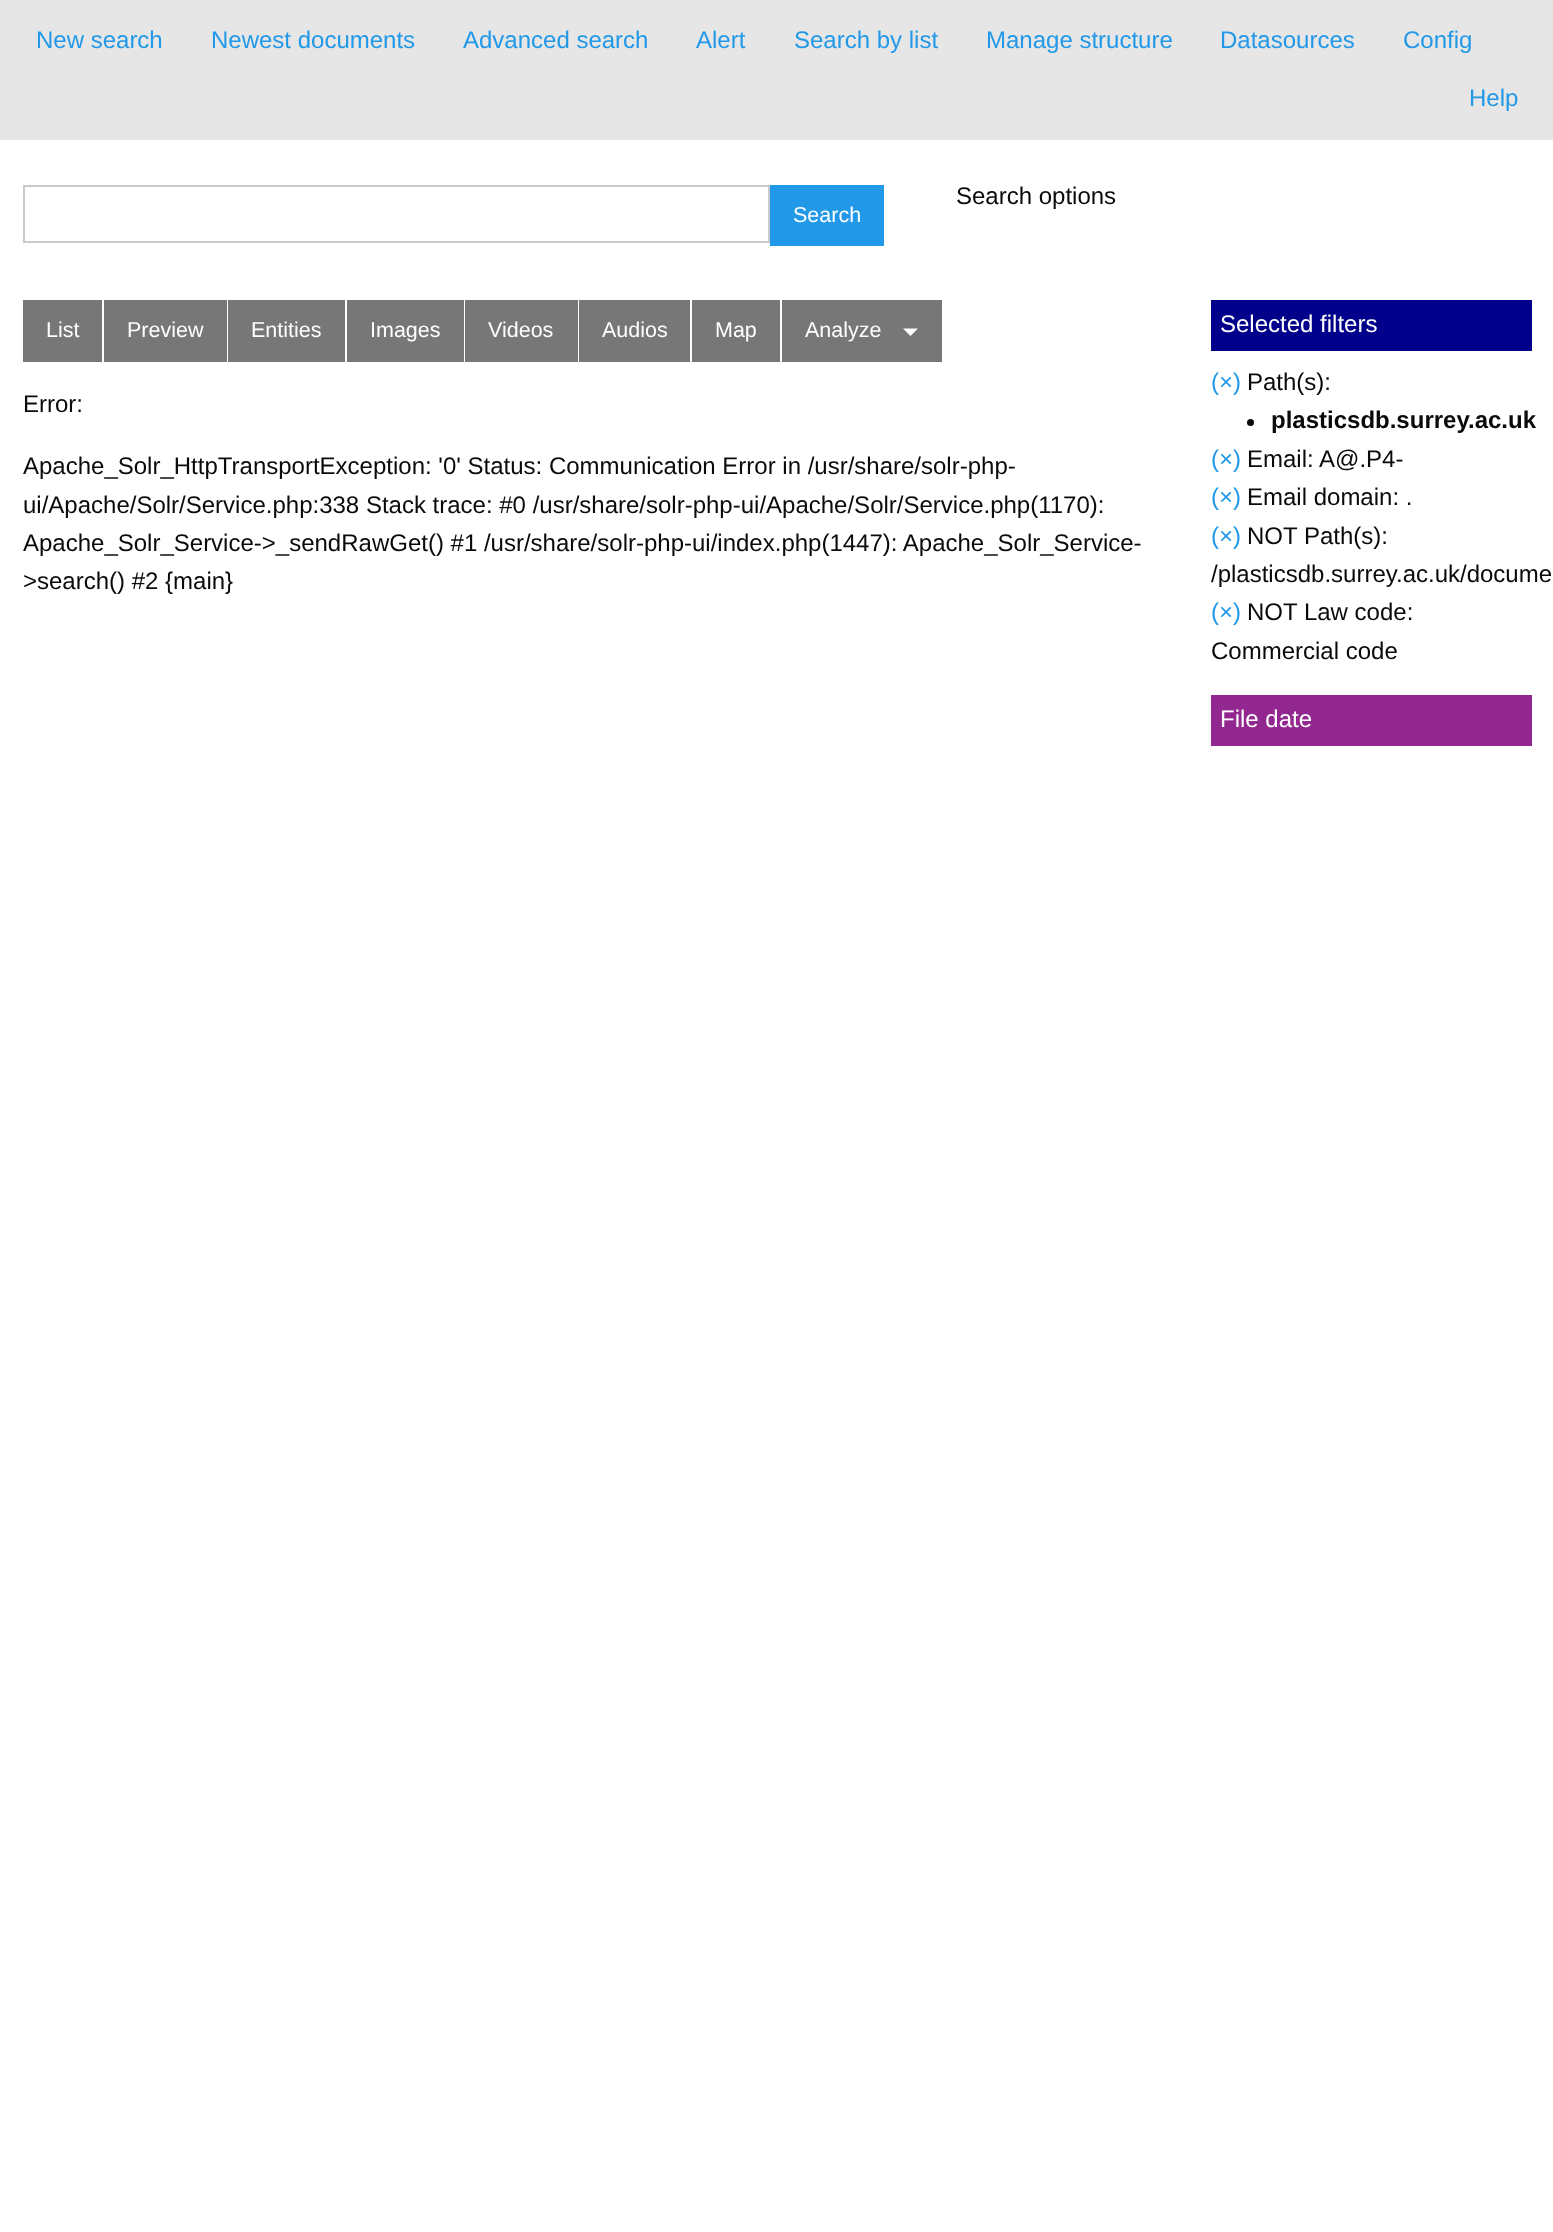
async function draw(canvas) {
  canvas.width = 1553;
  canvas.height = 2232;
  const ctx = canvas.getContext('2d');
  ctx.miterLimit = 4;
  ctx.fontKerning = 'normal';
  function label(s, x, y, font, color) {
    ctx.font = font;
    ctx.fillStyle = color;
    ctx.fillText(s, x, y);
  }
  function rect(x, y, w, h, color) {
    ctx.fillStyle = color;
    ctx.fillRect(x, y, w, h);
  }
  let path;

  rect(0, 0, 1553, 2232, '#fff');
  rect(0, 0, 1553, 140, '#e6e6e6');
  label('New search', 36, 48, '24px Liberation Sans', '#2199e8');
  label('Newest documents', 211, 48, '24px Liberation Sans', '#2199e8');
  label('Advanced search', 463, 48, '24px Liberation Sans', '#2199e8');
  label('Alert', 696, 48, '24px Liberation Sans', '#2199e8');
  label('Search by list', 794, 48, '24px Liberation Sans', '#2199e8');
  label('Manage structure', 986, 48, '24px Liberation Sans', '#2199e8');
  label('Datasources', 1220, 48, '24px Liberation Sans', '#2199e8');
  label('Config', 1403, 48, '24px Liberation Sans', '#2199e8');
  label('Help', 1469, 106, '24px Liberation Sans', '#2199e8');
  ctx.strokeStyle = '#cacaca';
  ctx.lineWidth = 2;
  ctx.strokeRect(24, 186, 745, 56);
  label('Search options', 956, 204, '24px Liberation Sans', '#0a0a0a');
  rect(770, 185, 114, 61, '#2199e8');
  label('Search', 793, 222, '21.5px Liberation Sans', '#fefefe');
  rect(23, 300, 79, 62, '#777');
  label('List', 46, 337, '21.5px Liberation Sans', '#fefefe');
  rect(104, 300, 123, 62, '#777');
  label('Preview', 127, 337, '21.5px Liberation Sans', '#fefefe');
  rect(228, 300, 117, 62, '#777');
  label('Entities', 251, 337, '21.5px Liberation Sans', '#fefefe');
  rect(347, 300, 117, 62, '#777');
  label('Images', 370, 337, '21.5px Liberation Sans', '#fefefe');
  rect(465, 300, 113, 62, '#777');
  label('Videos', 488, 337, '21.5px Liberation Sans', '#fefefe');
  rect(579, 300, 111, 62, '#777');
  label('Audios', 602, 337, '21.5px Liberation Sans', '#fefefe');
  rect(692, 300, 88, 62, '#777');
  label('Map', 715, 337, '21.5px Liberation Sans', '#fefefe');
  rect(782, 300, 160, 62, '#777');
  label('Analyze', 805, 337, '21.5px Liberation Sans', '#fefefe');
  path = new Path2D('M903 328.5H918L910.5 336Z');
  ctx.fill(path);
  label('Error:', 23, 412, '24px Liberation Sans', '#0a0a0a');
  label('Apache_Solr_HttpTransportException: \'0\' Status: Communication Error in /usr/share/solr-php-', 23, 474, '24px Liberation Sans', '#0a0a0a');
  label('ui/Apache/Solr/Service.php:338 Stack trace: #0 /usr/share/solr-php-ui/Apache/Solr/Service.php(1170):', 23, 513, '24px Liberation Sans', '#0a0a0a');
  label('Apache_Solr_Service->_sendRawGet() #1 /usr/share/solr-php-ui/index.php(1447): Apache_Solr_Service-', 23, 551, '24px Liberation Sans', '#0a0a0a');
  label('>search() #2 {main}', 23, 589, '24px Liberation Sans', '#0a0a0a');
  rect(1211, 300, 321, 51, '#00008b');
  label('Selected filters', 1220, 332, '24px Liberation Sans', '#fefefe');
  label('(×)', 1211, 390, '24px Liberation Sans', '#2199e8');
  label('Path(s):', 1247, 390, '24px Liberation Sans', '#0a0a0a');
  ctx.beginPath();
  ctx.arc(1250.5, 422.5, 3.5, 0, 2 * Math.PI);
  ctx.fill();
  label('plasticsdb.surrey.ac.uk', 1271, 428, 'bold 24px Liberation Sans', '#0a0a0a');
  label('(×)', 1211, 467, '24px Liberation Sans', '#2199e8');
  label('Email: A@.P4-', 1247, 467, '24px Liberation Sans', '#0a0a0a');
  label('(×)', 1211, 505, '24px Liberation Sans', '#2199e8');
  label('Email domain: .', 1247, 505, '24px Liberation Sans', '#0a0a0a');
  label('(×)', 1211, 544, '24px Liberation Sans', '#2199e8');
  label('NOT Path(s):', 1247, 544, '24px Liberation Sans', '#0a0a0a');
  label('/plasticsdb.surrey.ac.uk/docume', 1211, 582, '24px Liberation Sans', '#0a0a0a');
  label('(×)', 1211, 620, '24px Liberation Sans', '#2199e8');
  label('NOT Law code:', 1247, 620, '24px Liberation Sans', '#0a0a0a');
  label('Commercial code', 1211, 659, '24px Liberation Sans', '#0a0a0a');
  rect(1211, 695, 321, 51, '#92278f');
  label('File date', 1220, 727, '24px Liberation Sans', '#fefefe');
}

draw(document.querySelector('canvas'));
